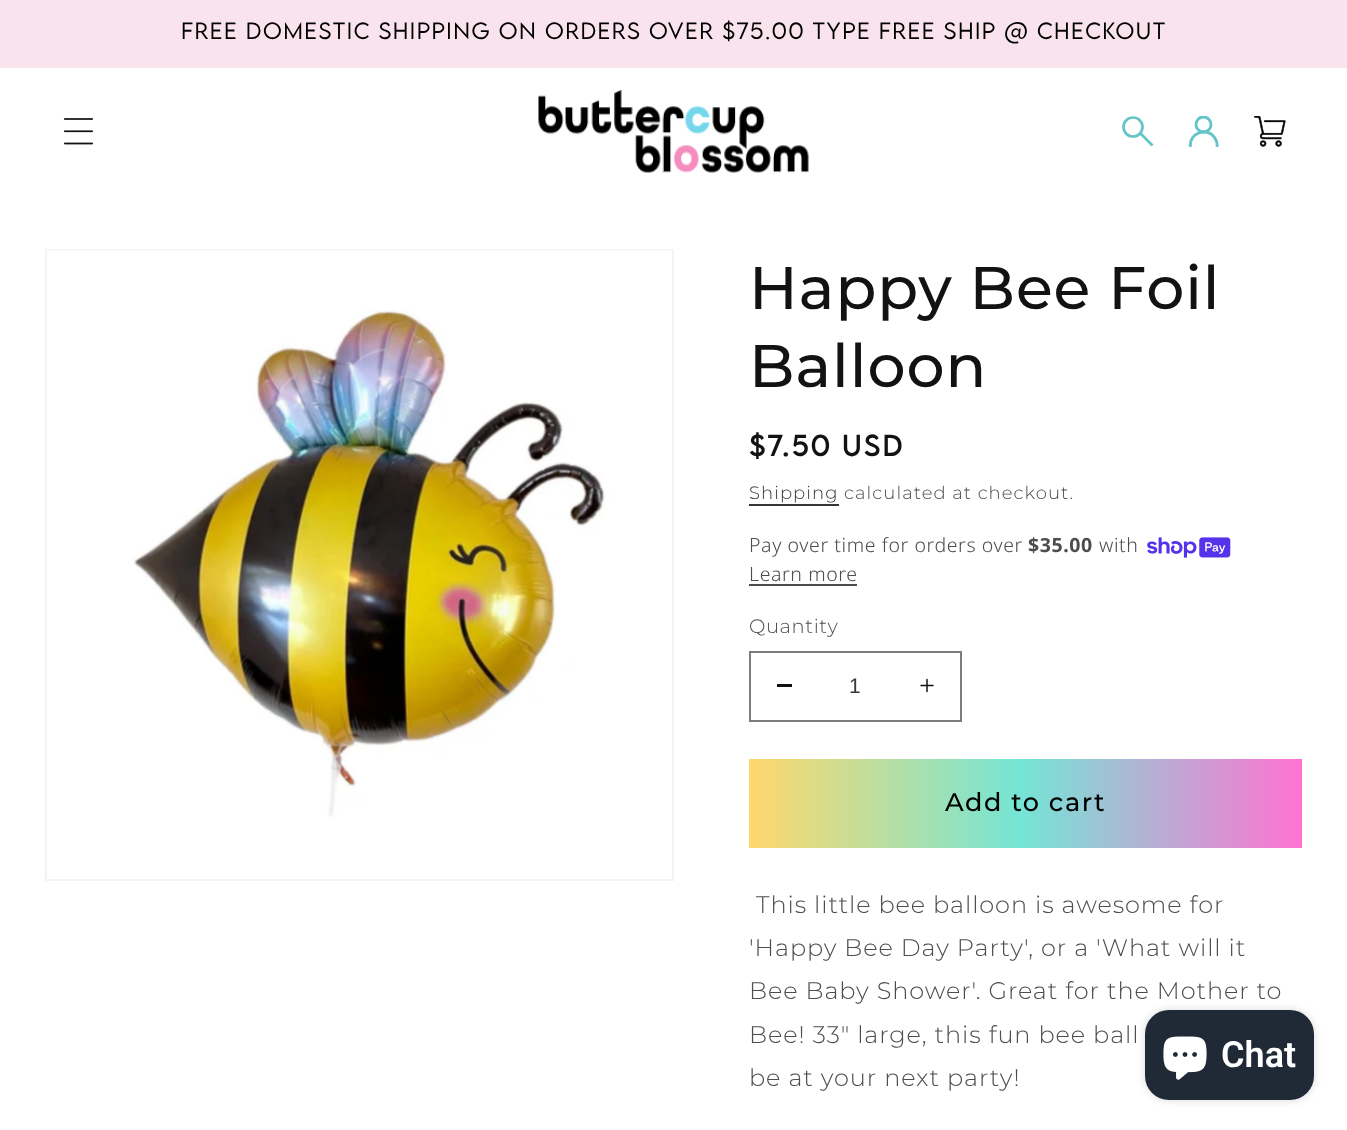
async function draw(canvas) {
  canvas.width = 1347;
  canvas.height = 1130;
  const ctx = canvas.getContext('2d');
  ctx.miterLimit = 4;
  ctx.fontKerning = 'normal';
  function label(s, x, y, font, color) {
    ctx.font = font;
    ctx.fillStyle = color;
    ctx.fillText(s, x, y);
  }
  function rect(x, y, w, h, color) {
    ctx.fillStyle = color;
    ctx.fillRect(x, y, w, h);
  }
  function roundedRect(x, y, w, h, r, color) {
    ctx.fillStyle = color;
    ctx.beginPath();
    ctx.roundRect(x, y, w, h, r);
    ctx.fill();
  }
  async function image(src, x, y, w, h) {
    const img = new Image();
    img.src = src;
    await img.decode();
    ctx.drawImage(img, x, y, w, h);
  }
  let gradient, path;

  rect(0, 0, 1347, 1130, '#fff');
  rect(0, 0, 1347, 68, '#f9e3ed');
  ctx.letterSpacing = '1.5px';
  label('FREE DOMESTIC SHIPPING ON ORDERS OVER $75.00 TYPE FREE SHIP @ CHECKOUT', 181, 39, '300 21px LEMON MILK', '#000');
  await image('assets/img1.png', 63, 118, 31, 27);
  await image('assets/img2.png', 538, 90, 271, 83);
  ctx.beginPath();
  ctx.arc(1133, 127, 9.5, 0, 2 * Math.PI);
  ctx.strokeStyle = '#65c4c8';
  ctx.lineWidth = 2.7;
  ctx.stroke();
  path = new Path2D('M1140 133L1152.5 145.5');
  ctx.stroke(path);
  ctx.save();
  ctx.beginPath();
  ctx.rect(1188, 116, 32, 31);
  ctx.clip();
  ctx.beginPath();
  ctx.arc(1203.5, 124.5, 7.5, 0, 2 * Math.PI);
  ctx.lineWidth = 2.9;
  ctx.stroke();
  path = new Path2D('M1190.5 147C1188.5 133 1207 126.5 1214.5 137.5C1216.5 140 1217.5 143.5 1217 147');
  ctx.stroke(path);
  ctx.restore();
  await image('assets/img3.png', 1254, 116, 32, 31);
  ctx.strokeStyle = '#f3f3f3';
  ctx.lineWidth = 2;
  ctx.strokeRect(46, 250, 627, 630);
  await image('assets/img4.png', 47, 250, 625, 567);
  ctx.letterSpacing = '0.9px';
  label('Happy Bee Foil', 749, 309, '500 60px Montserrat', '#121212');
  label('Balloon', 749, 387, '500 60px Montserrat', '#121212');
  ctx.letterSpacing = '2px';
  label('$7.50 USD', 749, 456, '27px LEMON MILK', '#121212');
  ctx.letterSpacing = '1.05px';
  label('Shipping', 749, 499, '300 18px Montserrat', '#363636');
  rect(749, 504, 90, 2, '#363636');
  label('calculated at checkout.', 844, 499, '300 18px Montserrat', '#4d4d4d');
  ctx.letterSpacing = '0.6px';
  label('Pay over time for orders over', 749, 552, '300 19.5px Noto Sans', '#4d4d4d');
  label('$35.00', 1028, 552, 'bold 19.5px Noto Sans', '#4d4d4d');
  label('with', 1099, 552, '300 19.5px Noto Sans', '#4d4d4d');
  await image('assets/img5.png', 1147, 537, 84, 21);
  label('Learn more', 749, 581, '300 19.5px Noto Sans', '#4d4d4d');
  rect(749, 584, 108, 2, '#4d4d4d');
  label('Quantity', 749, 633, '300 19.5px Montserrat', '#4d4d4d');
  rect(777, 684, 15, 3, '#121212');
  await image('assets/img6.png', 920, 678, 14, 15);
  ctx.strokeStyle = '#7d7d7d';
  ctx.strokeRect(750, 652, 211, 69);
  ctx.letterSpacing = '0px';
  label('1', 849, 693, '21px Liberation Sans', '#363636');
  gradient = ctx.createLinearGradient(749, 803, 1302, 803);
  gradient.addColorStop(0, '#ffd76c');
  gradient.addColorStop(0.49, '#74e5d6');
  gradient.addColorStop(1, '#ff73d1');
  ctx.fillStyle = gradient;
  ctx.fillRect(749, 759, 553, 89);
  ctx.letterSpacing = '1.5px';
  label('Add to cart', 945, 811, '500 25.5px Montserrat', '#000');
  ctx.letterSpacing = '0.9px';
  label('This little bee balloon is awesome for', 756, 913, '300 24px Montserrat', '#4d4d4d');
  label('\'Happy Bee Day Party\', or a \'What will it', 749, 956, '300 24px Montserrat', '#4d4d4d');
  label('Bee Baby Shower\'. Great for the Mother to', 749, 999, '300 24px Montserrat', '#4d4d4d');
  label('Bee! 33" large, this fun bee ball', 749, 1043, '300 24px Montserrat', '#4d4d4d');
  label('be at your next party!', 749, 1086, '300 24px Montserrat', '#4d4d4d');
  ctx.fillStyle = '#00000026';
  ctx.filter = 'blur(4px)';
  ctx.beginPath();
  ctx.roundRect(1145, 1010, 169, 90, 24);
  ctx.fill();
  ctx.filter = 'none';
  roundedRect(1145, 1010, 169, 90, 24, '#202a36');
  await image('assets/img7.png', 1163, 1036, 44, 44);
  ctx.letterSpacing = '0px';
  label('Chat', 1221, 1067, '600 36px Roboto', '#fff');
}

draw(document.querySelector('canvas'));
